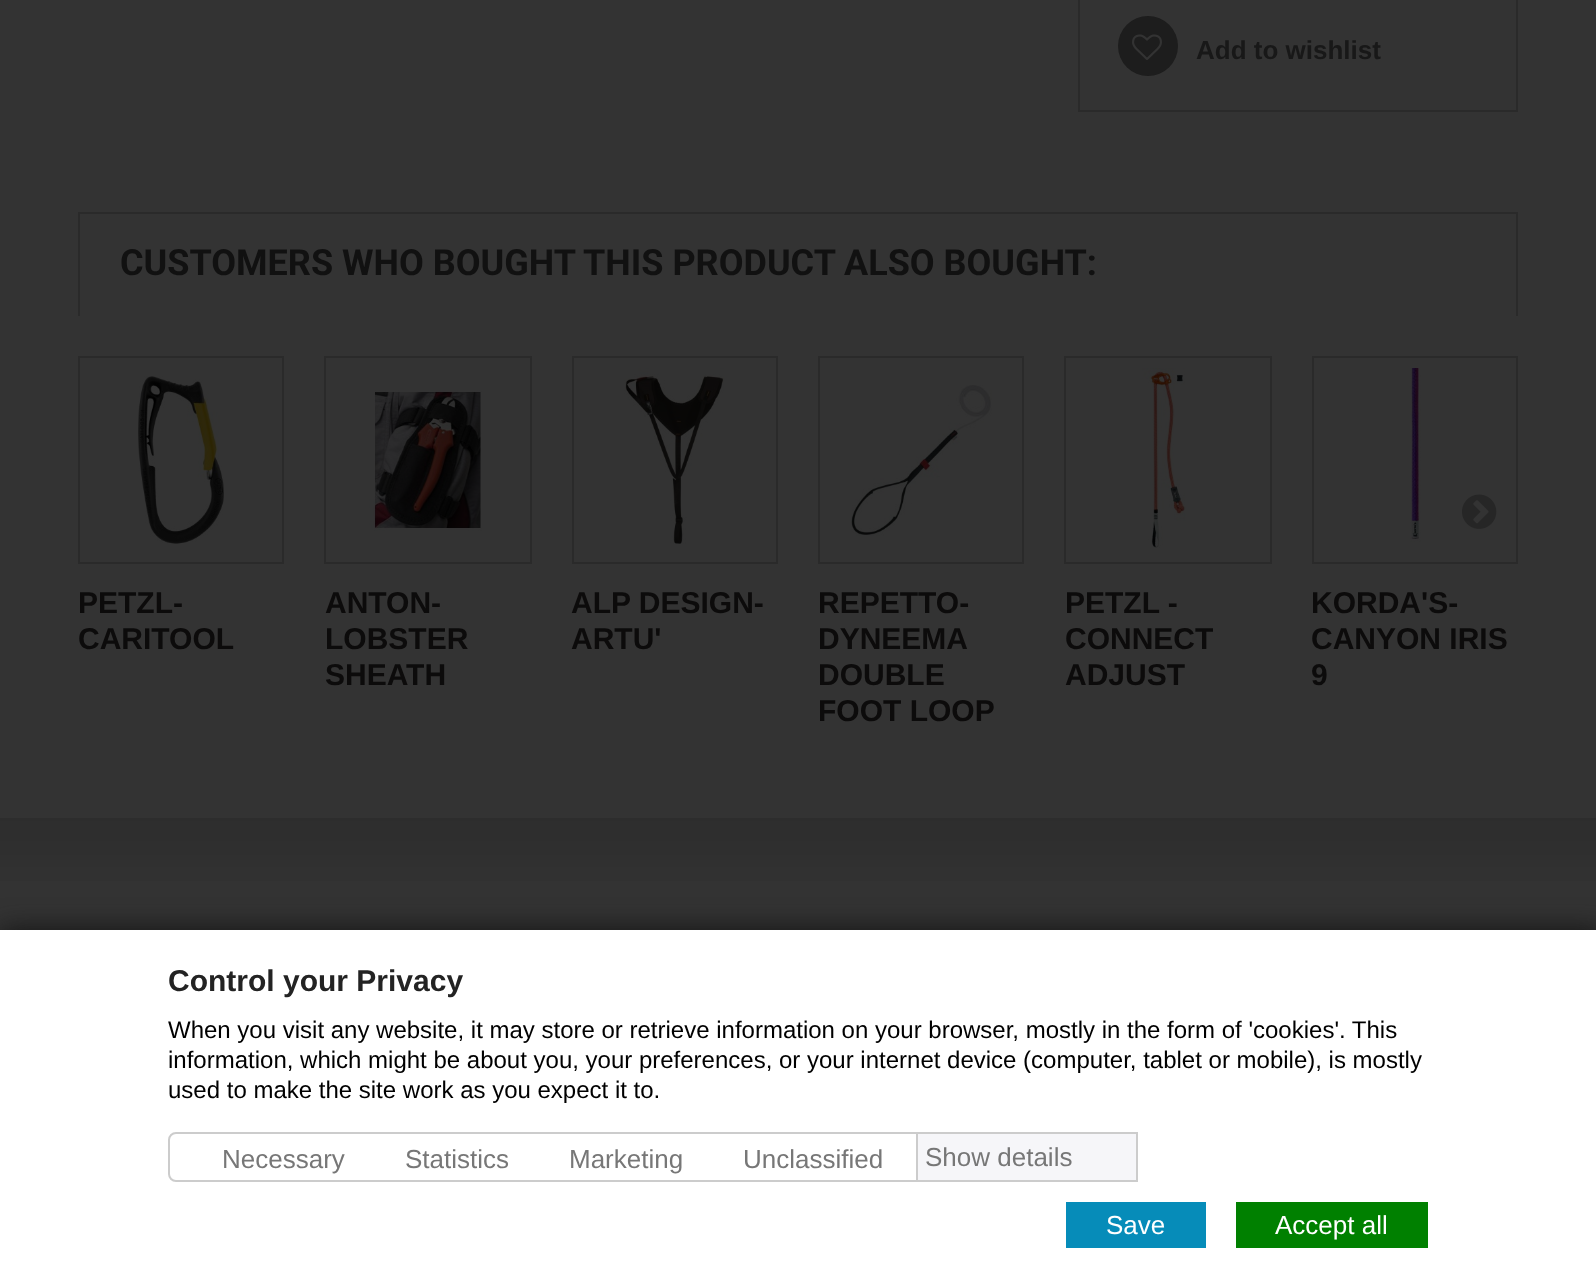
async function draw(canvas) {
  canvas.width = 1596;
  canvas.height = 1275;
  const ctx = canvas.getContext('2d');
  ctx.miterLimit = 4;
  ctx.fontKerning = 'normal';
  function label(s, x, y, font, color) {
    ctx.font = font;
    ctx.fillStyle = color;
    ctx.fillText(s, x, y);
  }
  function rect(x, y, w, h, color) {
    ctx.fillStyle = color;
    ctx.fillRect(x, y, w, h);
  }
  async function image(src, x, y, w, h) {
    const img = new Image();
    img.src = src;
    await img.decode();
    ctx.drawImage(img, x, y, w, h);
  }

  rect(0, 0, 1596, 1275, '#333');
  ctx.strokeStyle = '#2a2a2a';
  ctx.lineWidth = 2;
  ctx.strokeRect(1079, -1, 438, 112);
  ctx.fillStyle = '#1d1d1d';
  ctx.beginPath();
  ctx.arc(1148, 46, 30, 0, 2 * Math.PI);
  ctx.fill();
  await image('assets/img1.png', 1132, 34, 30, 27);
  label('Add to wishlist', 1196, 59, 'bold 26px Liberation Sans', '#181818');
  rect(78, 212, 1440, 2, '#2a2a2a');
  rect(1516, 212, 2, 104, '#2a2a2a');
  rect(78, 212, 2, 104, '#2a2a2a');
  label('CUSTOMERS WHO BOUGHT THIS PRODUCT ALSO BOUGHT:', 120, 275, 'bold 36px Roboto', '#111');
  ctx.strokeRect(1313, 357, 204, 206);
  await image('assets/img2.png', 1462, 494, 35, 35);
  ctx.strokeRect(79, 357, 204, 206);
  await image('assets/img3.png', 138, 376, 86, 168);
  label('PETZL-', 78, 613, 'bold 30px Liberation Sans', '#0c0b0b');
  label('CARITOOL', 78, 649, 'bold 30px Liberation Sans', '#0c0b0b');
  ctx.strokeRect(325, 357, 206, 206);
  await image('assets/img4.png', 369, 390, 113, 141);
  label('ANTON-', 325, 613, 'bold 30px Liberation Sans', '#0c0b0b');
  label('LOBSTER', 325, 649, 'bold 30px Liberation Sans', '#0c0b0b');
  label('SHEATH', 325, 685, 'bold 30px Liberation Sans', '#0c0b0b');
  ctx.strokeRect(573, 357, 204, 206);
  await image('assets/img5.png', 624, 368, 100, 176);
  label('ALP DESIGN-', 571, 613, 'bold 30px Liberation Sans', '#0c0b0b');
  label('ARTU\'', 571, 649, 'bold 30px Liberation Sans', '#0c0b0b');
  ctx.strokeRect(819, 357, 204, 206);
  await image('assets/img6.png', 851, 385, 141, 151);
  label('REPETTO-', 818, 613, 'bold 30px Liberation Sans', '#0c0b0b');
  label('DYNEEMA', 818, 649, 'bold 30px Liberation Sans', '#0c0b0b');
  label('DOUBLE', 818, 685, 'bold 30px Liberation Sans', '#0c0b0b');
  label('FOOT LOOP', 818, 721, 'bold 30px Liberation Sans', '#0c0b0b');
  ctx.strokeRect(1065, 357, 206, 206);
  await image('assets/img7.png', 1142, 368, 44, 180);
  label('PETZL -', 1065, 613, 'bold 30px Liberation Sans', '#0c0b0b');
  label('CONNECT', 1065, 649, 'bold 30px Liberation Sans', '#0c0b0b');
  label('ADJUST', 1065, 685, 'bold 30px Liberation Sans', '#0c0b0b');
  await image('assets/img8.png', 1410, 368, 11, 174);
  label('KORDA\'S-', 1311, 613, 'bold 30px Liberation Sans', '#0c0b0b');
  label('CANYON IRIS', 1311, 649, 'bold 30px Liberation Sans', '#0c0b0b');
  label('9', 1311, 685, 'bold 30px Liberation Sans', '#0c0b0b');
  await image('assets/img9.png', 0, 818, 1596, 63);
  ctx.fillStyle = '#121212';
  ctx.filter = 'blur(14px)';
  ctx.beginPath();
  ctx.rect(0, 930, 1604, 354);
  ctx.fill();
  ctx.filter = 'none';
  rect(0, 930, 1596, 345, '#fff');
  label('Control your Privacy', 168, 991, 'bold 30px Liberation Sans', '#232323');
  label('When you visit any website, it may store or retrieve information on your browser, mostly in the form of \'cookies\'. This', 168, 1038, '24px Liberation Sans', '#000');
  label('information, which might be about you, your preferences, or your internet device (computer, tablet or mobile), is mostly', 168, 1068, '24px Liberation Sans', '#000');
  label('used to make the site work as you expect it to.', 168, 1098, '24px Liberation Sans', '#000');
  ctx.beginPath();
  ctx.roundRect(169, 1133, 748, 48, [7, 0, 0, 7]);
  ctx.strokeStyle = '#ccc';
  ctx.stroke();
  label('Necessary', 222, 1168, '26px Liberation Sans', '#777');
  label('Statistics', 405, 1168, '26px Liberation Sans', '#777');
  label('Marketing', 569, 1168, '26px Liberation Sans', '#777');
  label('Unclassified', 743, 1168, '26px Liberation Sans', '#777');
  rect(918, 1134, 218, 46, '#f6f6f9');
  rect(918, 1132, 220, 2, '#ccc');
  rect(1136, 1132, 2, 50, '#ccc');
  rect(918, 1180, 220, 2, '#ccc');
  label('Show details', 925, 1166, '26px Liberation Sans', '#777');
  rect(1066, 1202, 140, 46, '#068cb9');
  label('Save', 1106, 1234, '26px Liberation Sans', '#fff');
  rect(1236, 1202, 192, 46, '#008000');
  label('Accept all', 1275, 1234, '26px Liberation Sans', '#fff');
}

draw(document.querySelector('canvas'));
